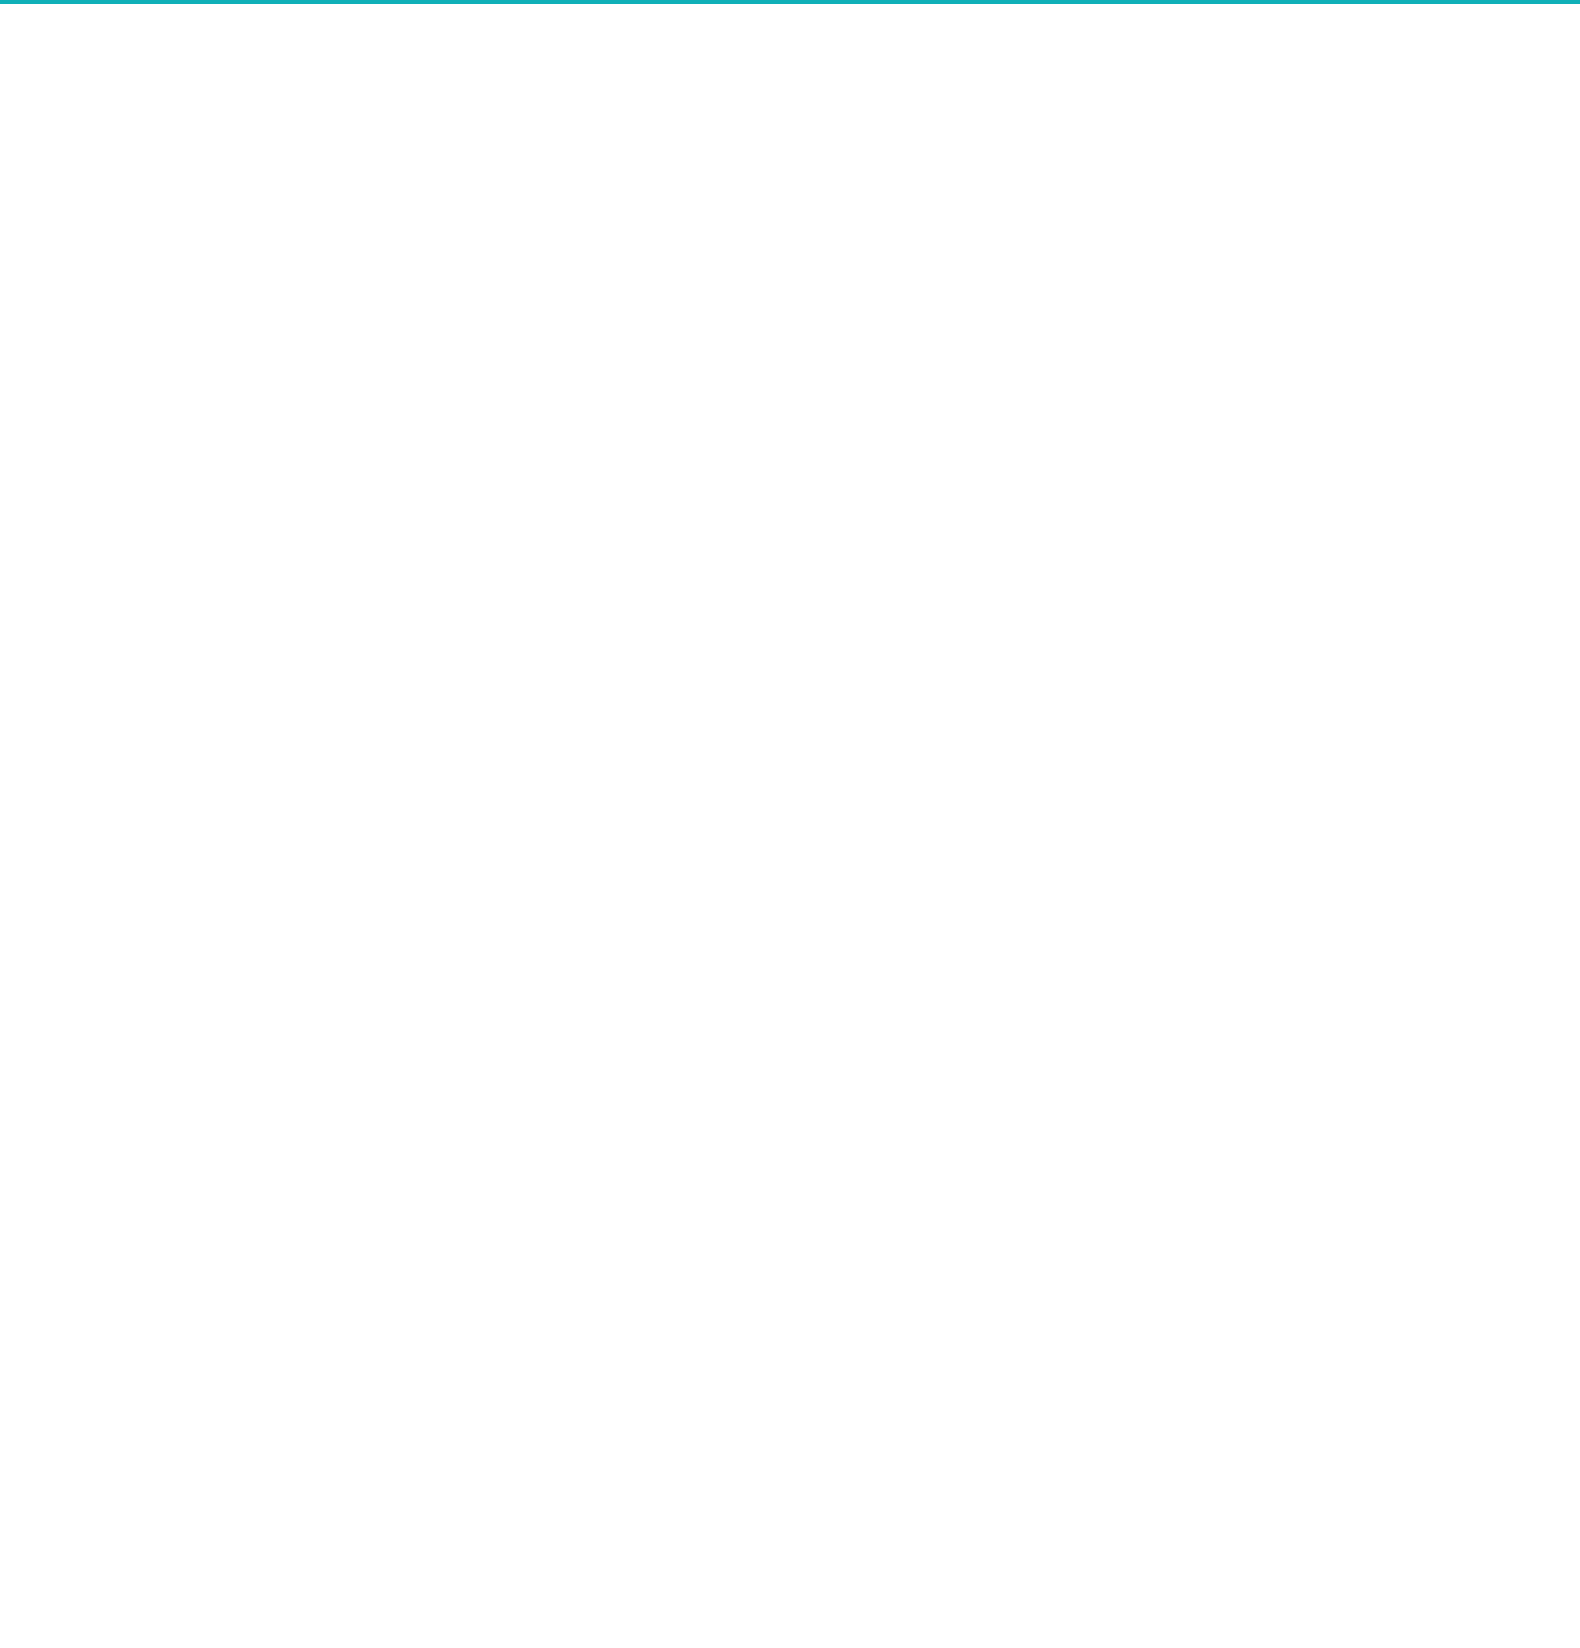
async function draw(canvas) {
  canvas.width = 1580;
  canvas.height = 1648;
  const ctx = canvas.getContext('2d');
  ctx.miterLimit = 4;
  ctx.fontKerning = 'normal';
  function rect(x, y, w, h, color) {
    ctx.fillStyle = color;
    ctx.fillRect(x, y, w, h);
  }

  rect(0, 0, 1580, 1648, '#fff');
  rect(0, 0, 1580, 4, '#10b0b8');
}

draw(document.querySelector('canvas'));
